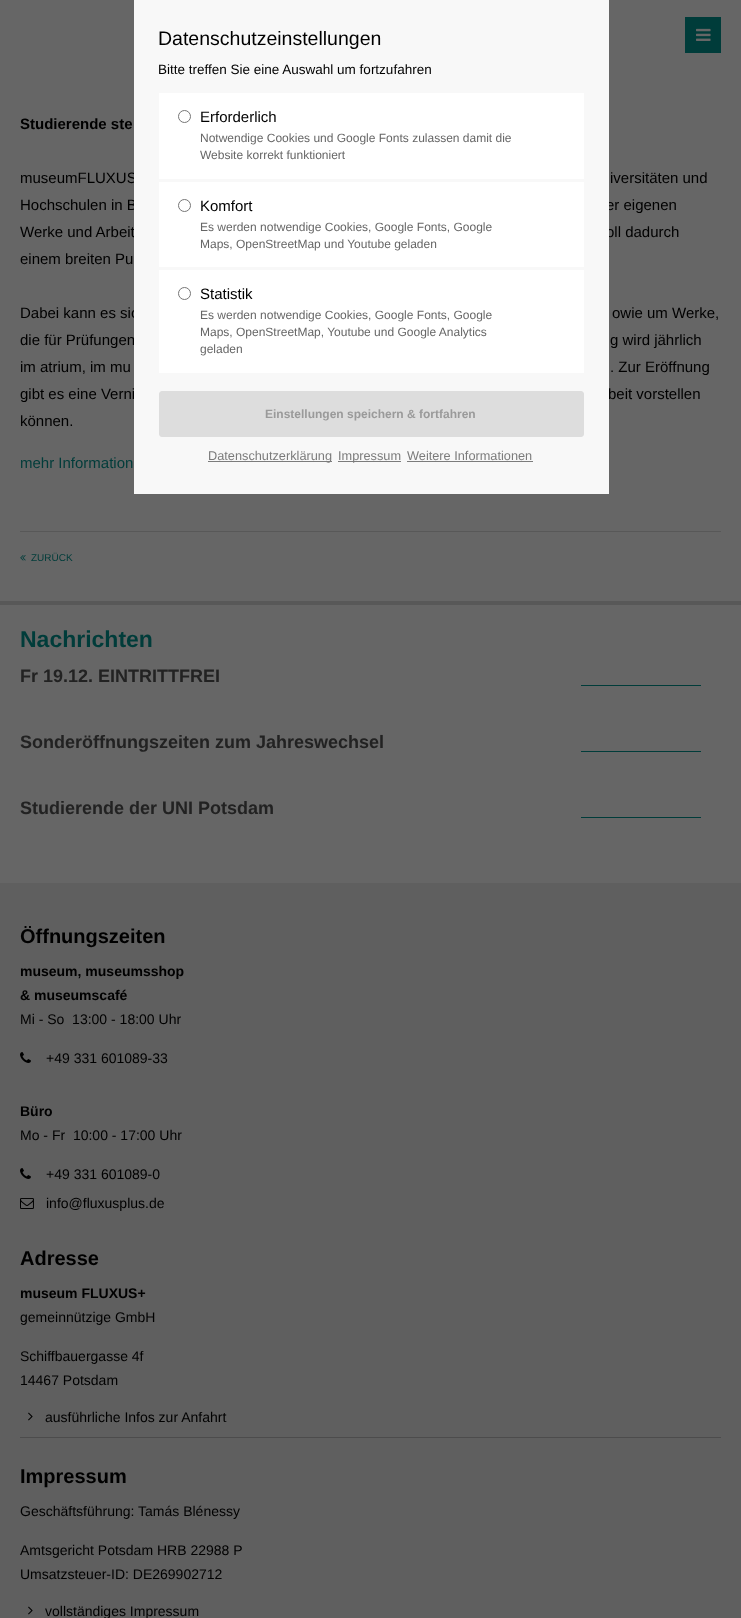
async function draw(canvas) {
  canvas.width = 741;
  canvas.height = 1618;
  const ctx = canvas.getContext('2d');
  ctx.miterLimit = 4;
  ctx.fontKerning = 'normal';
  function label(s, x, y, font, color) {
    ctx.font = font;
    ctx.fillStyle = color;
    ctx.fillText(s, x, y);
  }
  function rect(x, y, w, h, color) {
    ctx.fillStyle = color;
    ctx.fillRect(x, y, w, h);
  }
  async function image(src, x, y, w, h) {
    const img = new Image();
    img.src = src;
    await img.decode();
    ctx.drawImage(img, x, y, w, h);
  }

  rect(0, 0, 741, 1618, '#666');
  label('museumFLUXUS', 20, 183, '15px Liberation Sans', '#000');
  label('Hochschulen in B', 20, 210, '15px Liberation Sans', '#000');
  label('er eigenen', 606, 210, '15px Liberation Sans', '#000');
  label('Werke und Arbeit', 20, 237, '15px Liberation Sans', '#000');
  label('oll dadurch', 606, 237, '15px Liberation Sans', '#000');
  label('Dabei kann es sic', 20, 318, '15px Liberation Sans', '#000');
  label('die für Prüfungen', 20, 345, '15px Liberation Sans', '#000');
  label('gibt es eine Verni', 20, 399, '15px Liberation Sans', '#000');
  label('beit vorstellen', 608, 399, '15px Liberation Sans', '#000');
  rect(134, 0, 475, 494, '#f8f8f8');
  label('Datenschutzeinstellungen', 158, 45, '19.5px Liberation Sans', '#000');
  label('Bitte treffen Sie eine Auswahl um fortzufahren', 158, 74, '13.5px Liberation Sans', '#000');
  rect(159, 93, 425, 86, '#fff');
  ctx.beginPath();
  ctx.arc(184.5, 116.5, 6, 0, 2 * Math.PI);
  ctx.strokeStyle = '#767676';
  ctx.stroke();
  label('Erforderlich', 200, 122, '15px Liberation Sans', '#000');
  label('Notwendige Cookies und Google Fonts zulassen damit die', 200, 142, '12px Liberation Sans', '#666');
  label('Website korrekt funktioniert', 200, 159, '12px Liberation Sans', '#666');
  rect(159, 182, 425, 85, '#fff');
  ctx.beginPath();
  ctx.arc(184.5, 205.5, 6, 0, 2 * Math.PI);
  ctx.stroke();
  label('Komfort', 200, 211, '15px Liberation Sans', '#000');
  label('Es werden notwendige Cookies, Google Fonts, Google', 200, 231, '12px Liberation Sans', '#666');
  label('Maps, OpenStreetMap und Youtube geladen', 200, 248, '12px Liberation Sans', '#666');
  rect(159, 270, 425, 103, '#fff');
  ctx.beginPath();
  ctx.arc(184.5, 293.5, 6, 0, 2 * Math.PI);
  ctx.stroke();
  label('Statistik', 200, 299, '15px Liberation Sans', '#000');
  label('Es werden notwendige Cookies, Google Fonts, Google', 200, 319, '12px Liberation Sans', '#666');
  label('Maps, OpenStreetMap, Youtube und Google Analytics', 200, 336, '12px Liberation Sans', '#666');
  label('geladen', 200, 353, '12px Liberation Sans', '#666');
  ctx.fillStyle = '#ddd';
  ctx.beginPath();
  ctx.roundRect(159.5, 391.5, 424, 45, 2.5);
  ctx.fill();
  ctx.strokeStyle = '#ddd';
  ctx.stroke();
  label('Einstellungen speichern & fortfahren', 265, 418, 'bold 12px Liberation Sans', '#9a9a9a');
  rect(208, 461, 124, 1, '#7c7c7c');
  label('Datenschutzerklärung', 208, 460, '12.75px Liberation Sans', '#7b7b7b');
  rect(338, 461, 63, 1, '#7c7c7c');
  label('Impressum', 338, 460, '12.75px Liberation Sans', '#7b7b7b');
  label('Weitere Informationen', 407, 460, '12.75px Liberation Sans', '#7b7b7b');
  rect(407, 461, 126, 1, '#7c7c7c');
  rect(685, 17, 36, 36, '#003c3a');
  await image('assets/img1.png', 696, 28, 15, 13);
  label('Studierende ste', 20, 129, 'bold 15px Liberation Sans', '#000');
  label('iversitäten und', 610, 183, '15px Liberation Sans', '#000');
  label('einem breiten Pu', 20, 264, '15px Liberation Sans', '#000');
  label('owie um Werke,', 612, 318, '15px Liberation Sans', '#000');
  label('g wird jährlich', 610, 345, '15px Liberation Sans', '#000');
  label('im atrium, im mu', 20, 372, '15px Liberation Sans', '#000');
  label('. Zur Eröffnung', 610, 372, '15px Liberation Sans', '#000');
  label('können.', 20, 426, '15px Liberation Sans', '#000');
  label('mehr Information', 20, 468, '15px Liberation Sans', '#003c3a');
  rect(20, 531, 701, 1, '#585858');
  await image('assets/img2.png', 20, 555, 6, 6);
  label('ZURÜCK', 31, 561, '10px Liberation Sans', '#003c3a');
  rect(0, 601, 741, 4, '#585858');
  label('Nachrichten', 20, 647, 'bold 23px Liberation Sans', '#003c3a');
  label('Fr 19.12. EINTRITTFREI', 20, 682, 'bold 18px Liberation Sans', '#222');
  rect(581, 685, 120, 1, '#003c3a');
  label('Sonderöffnungszeiten zum Jahreswechsel', 20, 748, 'bold 18px Liberation Sans', '#222');
  rect(581, 751, 120, 1, '#003c3a');
  label('Studierende der UNI Potsdam', 20, 814, 'bold 18px Liberation Sans', '#222');
  rect(581, 817, 120, 1, '#003c3a');
  rect(0, 883, 741, 735, '#5f5f5f');
  label('Öffnungszeiten', 20, 943, 'bold 20px Liberation Sans', '#000');
  label('museum, museumsshop', 20, 976, 'bold 14px Liberation Sans', '#000');
  label('& museumscafé', 20, 1000, 'bold 14px Liberation Sans', '#000');
  label('Mi - So  13:00 - 18:00 Uhr', 20, 1024, '14px Liberation Sans', '#000');
  await image('assets/img3.png', 20, 1052, 11, 11);
  label('+49 331 601089-33', 46, 1063, '14px Liberation Sans', '#000');
  label('Büro', 20, 1116, 'bold 14px Liberation Sans', '#000');
  label('Mo - Fr  10:00 - 17:00 Uhr', 20, 1140, '14px Liberation Sans', '#000');
  await image('assets/img3.png', 20, 1168, 11, 11);
  label('+49 331 601089-0', 46, 1179, '14px Liberation Sans', '#000');
  await image('assets/img4.png', 20, 1198, 14, 11);
  label('info@fluxusplus.de', 46, 1208, '14px Liberation Sans', '#000');
  label('Adresse', 20, 1265, 'bold 20px Liberation Sans', '#000');
  label('museum FLUXUS+', 20, 1298, 'bold 14px Liberation Sans', '#000');
  label('gemeinnützige GmbH', 20, 1322, '14px Liberation Sans', '#000');
  label('Schiffbauergasse 4f', 20, 1361, '14px Liberation Sans', '#000');
  label('14467 Potsdam', 20, 1385, '14px Liberation Sans', '#000');
  await image('assets/img5.png', 28, 1412, 5, 9);
  label('ausführliche Infos zur Anfahrt', 45, 1422, '14px Liberation Sans', '#000');
  rect(20, 1437, 701, 1, '#4c4c4c');
  label('Impressum', 20, 1483, 'bold 20px Liberation Sans', '#000');
  label('Geschäftsführung: Tamás Blénessy', 20, 1516, '14px Liberation Sans', '#000');
  label('Amtsgericht Potsdam HRB 22988 P', 20, 1555, '14px Liberation Sans', '#000');
  label('Umsatzsteuer-ID: DE269902712', 20, 1579, '14px Liberation Sans', '#000');
  await image('assets/img5.png', 28, 1606, 5, 9);
  label('vollständiges Impressum', 45, 1616, '14px Liberation Sans', '#000');
}

draw(document.querySelector('canvas'));
